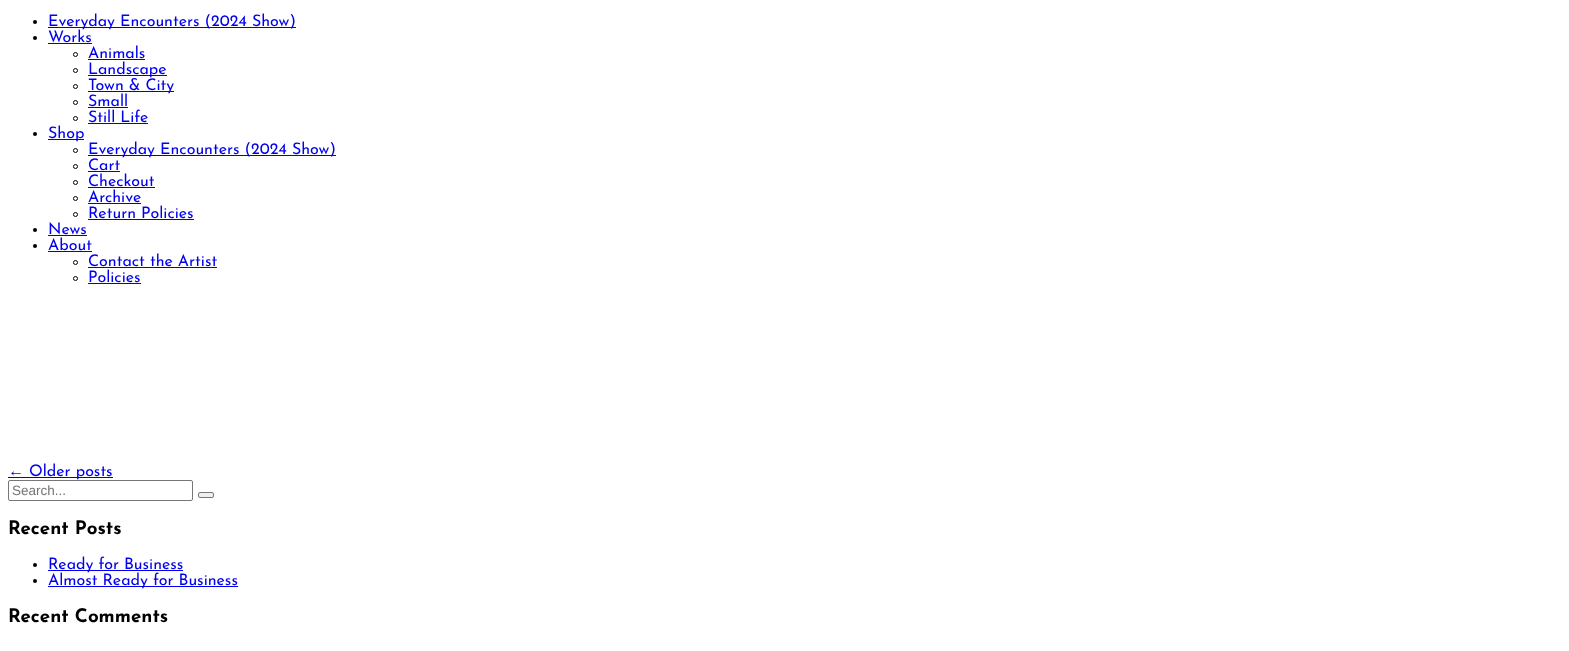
async function draw(canvas) {
  canvas.width = 1569;
  canvas.height = 651;
  const ctx = canvas.getContext('2d');
  ctx.miterLimit = 4;
  ctx.fontKerning = 'normal';
  function label(s, x, y, font, color) {
    ctx.font = font;
    ctx.fillStyle = color;
    ctx.fillText(s, x, y);
  }
  function rect(x, y, w, h, color) {
    ctx.fillStyle = color;
    ctx.fillRect(x, y, w, h);
  }

  rect(0, 0, 1569, 651, '#fff');
  ctx.fillStyle = '#000';
  ctx.beginPath();
  ctx.arc(35, 22, 2, 0, 2 * Math.PI);
  ctx.fill();
  rect(48, 27, 248, 1, '#00e');
  label('Everyday Encounters (2024 Show)', 48, 26, '16px Josefin Sans', '#00e');
  ctx.fillStyle = '#000';
  ctx.beginPath();
  ctx.arc(35, 38, 2, 0, 2 * Math.PI);
  ctx.fill();
  label('Works', 48, 42, '16px Josefin Sans', '#00e');
  rect(48, 43, 44, 1, '#00e');
  ctx.beginPath();
  ctx.arc(75.5, 54.5, 2, 0, 2 * Math.PI);
  ctx.strokeStyle = '#000';
  ctx.stroke();
  label('Animals', 88, 58, '16px Josefin Sans', '#00e');
  rect(88, 59, 57, 1, '#00e');
  ctx.beginPath();
  ctx.arc(75.5, 70.5, 2, 0, 2 * Math.PI);
  ctx.stroke();
  rect(88, 75, 79, 1, '#00e');
  label('Landscape', 88, 74, '16px Josefin Sans', '#00e');
  ctx.beginPath();
  ctx.arc(75.5, 86.5, 2, 0, 2 * Math.PI);
  ctx.stroke();
  rect(88, 91, 86, 1, '#00e');
  label('Town & City', 88, 90, '16px Josefin Sans', '#00e');
  ctx.beginPath();
  ctx.arc(75.5, 102.5, 2, 0, 2 * Math.PI);
  ctx.stroke();
  label('Small', 88, 106, '16px Josefin Sans', '#00e');
  rect(88, 107, 40, 1, '#00e');
  ctx.beginPath();
  ctx.arc(75.5, 118.5, 2, 0, 2 * Math.PI);
  ctx.stroke();
  label('Still Life', 88, 122, '16px Josefin Sans', '#00e');
  rect(88, 123, 60, 1, '#00e');
  ctx.fillStyle = '#000';
  ctx.beginPath();
  ctx.arc(35, 134, 2, 0, 2 * Math.PI);
  ctx.fill();
  rect(48, 139, 36, 1, '#00e');
  label('Shop', 48, 138, '16px Josefin Sans', '#00e');
  ctx.beginPath();
  ctx.arc(75.5, 150.5, 2, 0, 2 * Math.PI);
  ctx.stroke();
  rect(88, 155, 248, 1, '#00e');
  label('Everyday Encounters (2024 Show)', 88, 154, '16px Josefin Sans', '#00e');
  ctx.beginPath();
  ctx.arc(75.5, 166.5, 2, 0, 2 * Math.PI);
  ctx.stroke();
  label('Cart', 88, 170, '16px Josefin Sans', '#00e');
  rect(88, 171, 32, 1, '#00e');
  ctx.beginPath();
  ctx.arc(75.5, 182.5, 2, 0, 2 * Math.PI);
  ctx.stroke();
  label('Checkout', 88, 186, '16px Josefin Sans', '#00e');
  rect(88, 187, 67, 1, '#00e');
  ctx.beginPath();
  ctx.arc(75.5, 198.5, 2, 0, 2 * Math.PI);
  ctx.stroke();
  label('Archive', 88, 202, '16px Josefin Sans', '#00e');
  rect(88, 203, 53, 1, '#00e');
  ctx.beginPath();
  ctx.arc(75.5, 214.5, 2, 0, 2 * Math.PI);
  ctx.stroke();
  label('Return Policies', 88, 218, '16px Josefin Sans', '#00e');
  rect(88, 219, 106, 1, '#00e');
  ctx.fillStyle = '#000';
  ctx.beginPath();
  ctx.arc(35, 230, 2, 0, 2 * Math.PI);
  ctx.fill();
  label('News', 48, 234, '16px Josefin Sans', '#00e');
  rect(48, 235, 39, 1, '#00e');
  ctx.fillStyle = '#000';
  ctx.beginPath();
  ctx.arc(35, 246, 2, 0, 2 * Math.PI);
  ctx.fill();
  label('About', 48, 250, '16px Josefin Sans', '#00e');
  rect(48, 251, 44, 1, '#00e');
  ctx.beginPath();
  ctx.arc(75.5, 262.5, 2, 0, 2 * Math.PI);
  ctx.stroke();
  label('Contact the Artist', 88, 266, '16px Josefin Sans', '#00e');
  rect(88, 267, 129, 1, '#00e');
  ctx.beginPath();
  ctx.arc(75.5, 278.5, 2, 0, 2 * Math.PI);
  ctx.stroke();
  label('Policies', 88, 282, '16px Josefin Sans', '#00e');
  rect(88, 283, 53, 1, '#00e');
  label('←', 8, 476, '16px Liberation Serif', '#00e');
  rect(8, 477, 105, 1, '#00e');
  label('Older posts', 29, 476, '16px Josefin Sans', '#00e');
  ctx.beginPath();
  ctx.roundRect(8.5, 480.5, 184, 20, 1.5);
  ctx.strokeStyle = '#767676';
  ctx.stroke();
  label('Search...', 12, 495, '13.5px Liberation Sans', '#757575');
  ctx.fillStyle = '#efefef';
  ctx.beginPath();
  ctx.roundRect(198.5, 492.5, 15, 5, 1.5);
  ctx.fill();
  ctx.stroke();
  label('Recent Posts', 8, 534, 'bold 18.75px Josefin Sans', '#000');
  ctx.beginPath();
  ctx.arc(35, 565, 2, 0, 2 * Math.PI);
  ctx.fill();
  rect(48, 570, 135, 1, '#00e');
  label('Ready for Business', 48, 569, '16px Josefin Sans', '#00e');
  ctx.fillStyle = '#000';
  ctx.beginPath();
  ctx.arc(35, 581, 2, 0, 2 * Math.PI);
  ctx.fill();
  rect(48, 586, 190, 1, '#00e');
  label('Almost Ready for Business', 48, 585, '16px Josefin Sans', '#00e');
  label('Recent Comments', 8, 622, 'bold 18.75px Josefin Sans', '#000');
}

draw(document.querySelector('canvas'));
